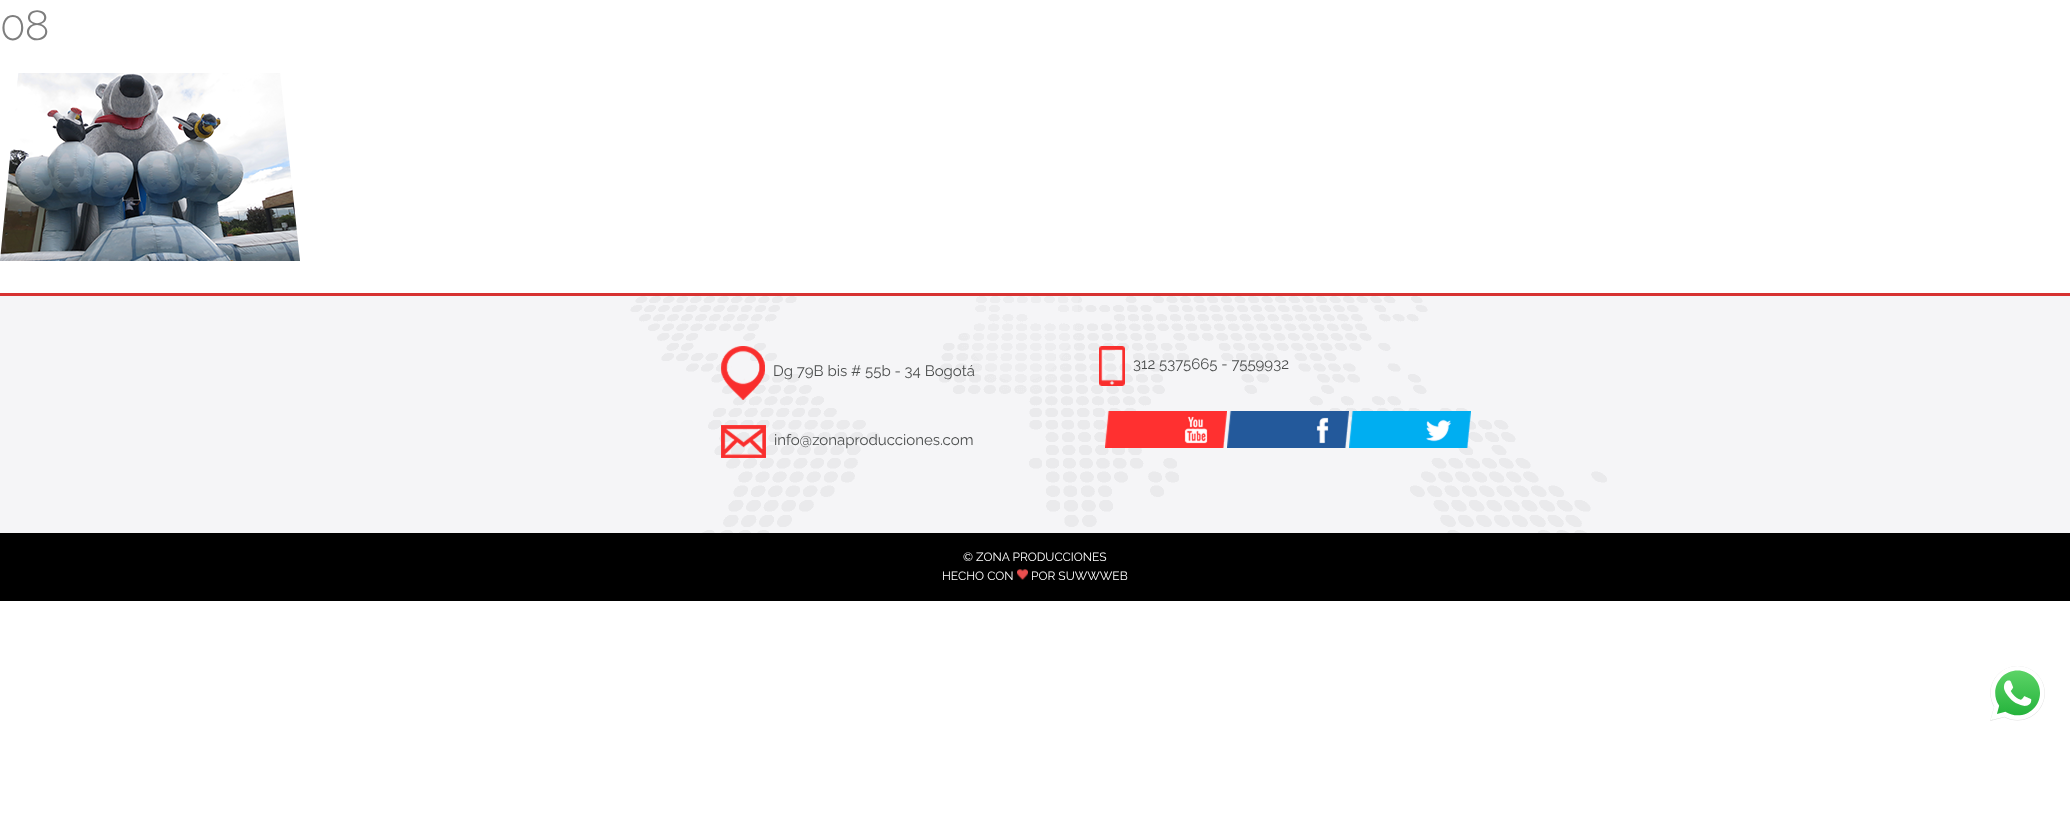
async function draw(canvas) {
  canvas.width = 2070;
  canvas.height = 821;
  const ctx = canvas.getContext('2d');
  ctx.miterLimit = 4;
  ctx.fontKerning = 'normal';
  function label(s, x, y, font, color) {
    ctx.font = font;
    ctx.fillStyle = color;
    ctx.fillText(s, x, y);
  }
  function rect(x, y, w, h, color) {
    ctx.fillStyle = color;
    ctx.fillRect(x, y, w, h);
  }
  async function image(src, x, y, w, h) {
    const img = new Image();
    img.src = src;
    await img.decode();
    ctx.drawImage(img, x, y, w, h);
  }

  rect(0, 0, 2070, 821, '#fff');
  ctx.letterSpacing = '-1px';
  label('08', 0, 40, '300 42px Raleway', '#7e7e7e');
  await image('assets/img1.png', 0, 73, 300, 188);
  rect(0, 296, 2070, 237, '#f5f5f7');
  await image('assets/img2.png', 630, 296, 977, 237);
  rect(0, 293, 2070, 3, '#d73231');
  await image('assets/img3.png', 721, 346, 44, 54);
  ctx.letterSpacing = '0px';
  label('Dg 79B bis # 55b - 34 Bogotá', 773, 376, '15px Raleway', '#4c4e4e');
  await image('assets/img4.png', 721, 425, 45, 33);
  label('info@zonaproducciones.com', 774, 445, '15px Raleway', '#4c4e4e');
  await image('assets/img5.png', 1099, 346, 26, 40);
  label('312 5375665 - 7559932', 1133, 369, '15px Raleway', '#4c4e4e');
  await image('assets/img6.png', 1105, 411, 122, 37);
  await image('assets/img7.png', 1227, 411, 122, 37);
  await image('assets/img8.png', 1349, 411, 122, 37);
  rect(0, 533, 2070, 68, '#000');
  label('© ZONA PRODUCCIONES', 963, 561, '12px Raleway', '#fff');
  label('HECHO CON', 942, 580, '12px Raleway', '#fff');
  await image('assets/img9.png', 1017, 569, 11, 11);
  label('POR SUWWWEB', 1031, 580, '12px Raleway', '#fff');
  await image('assets/img10.png', 1990, 666, 55, 55);
}

draw(document.querySelector('canvas'));
